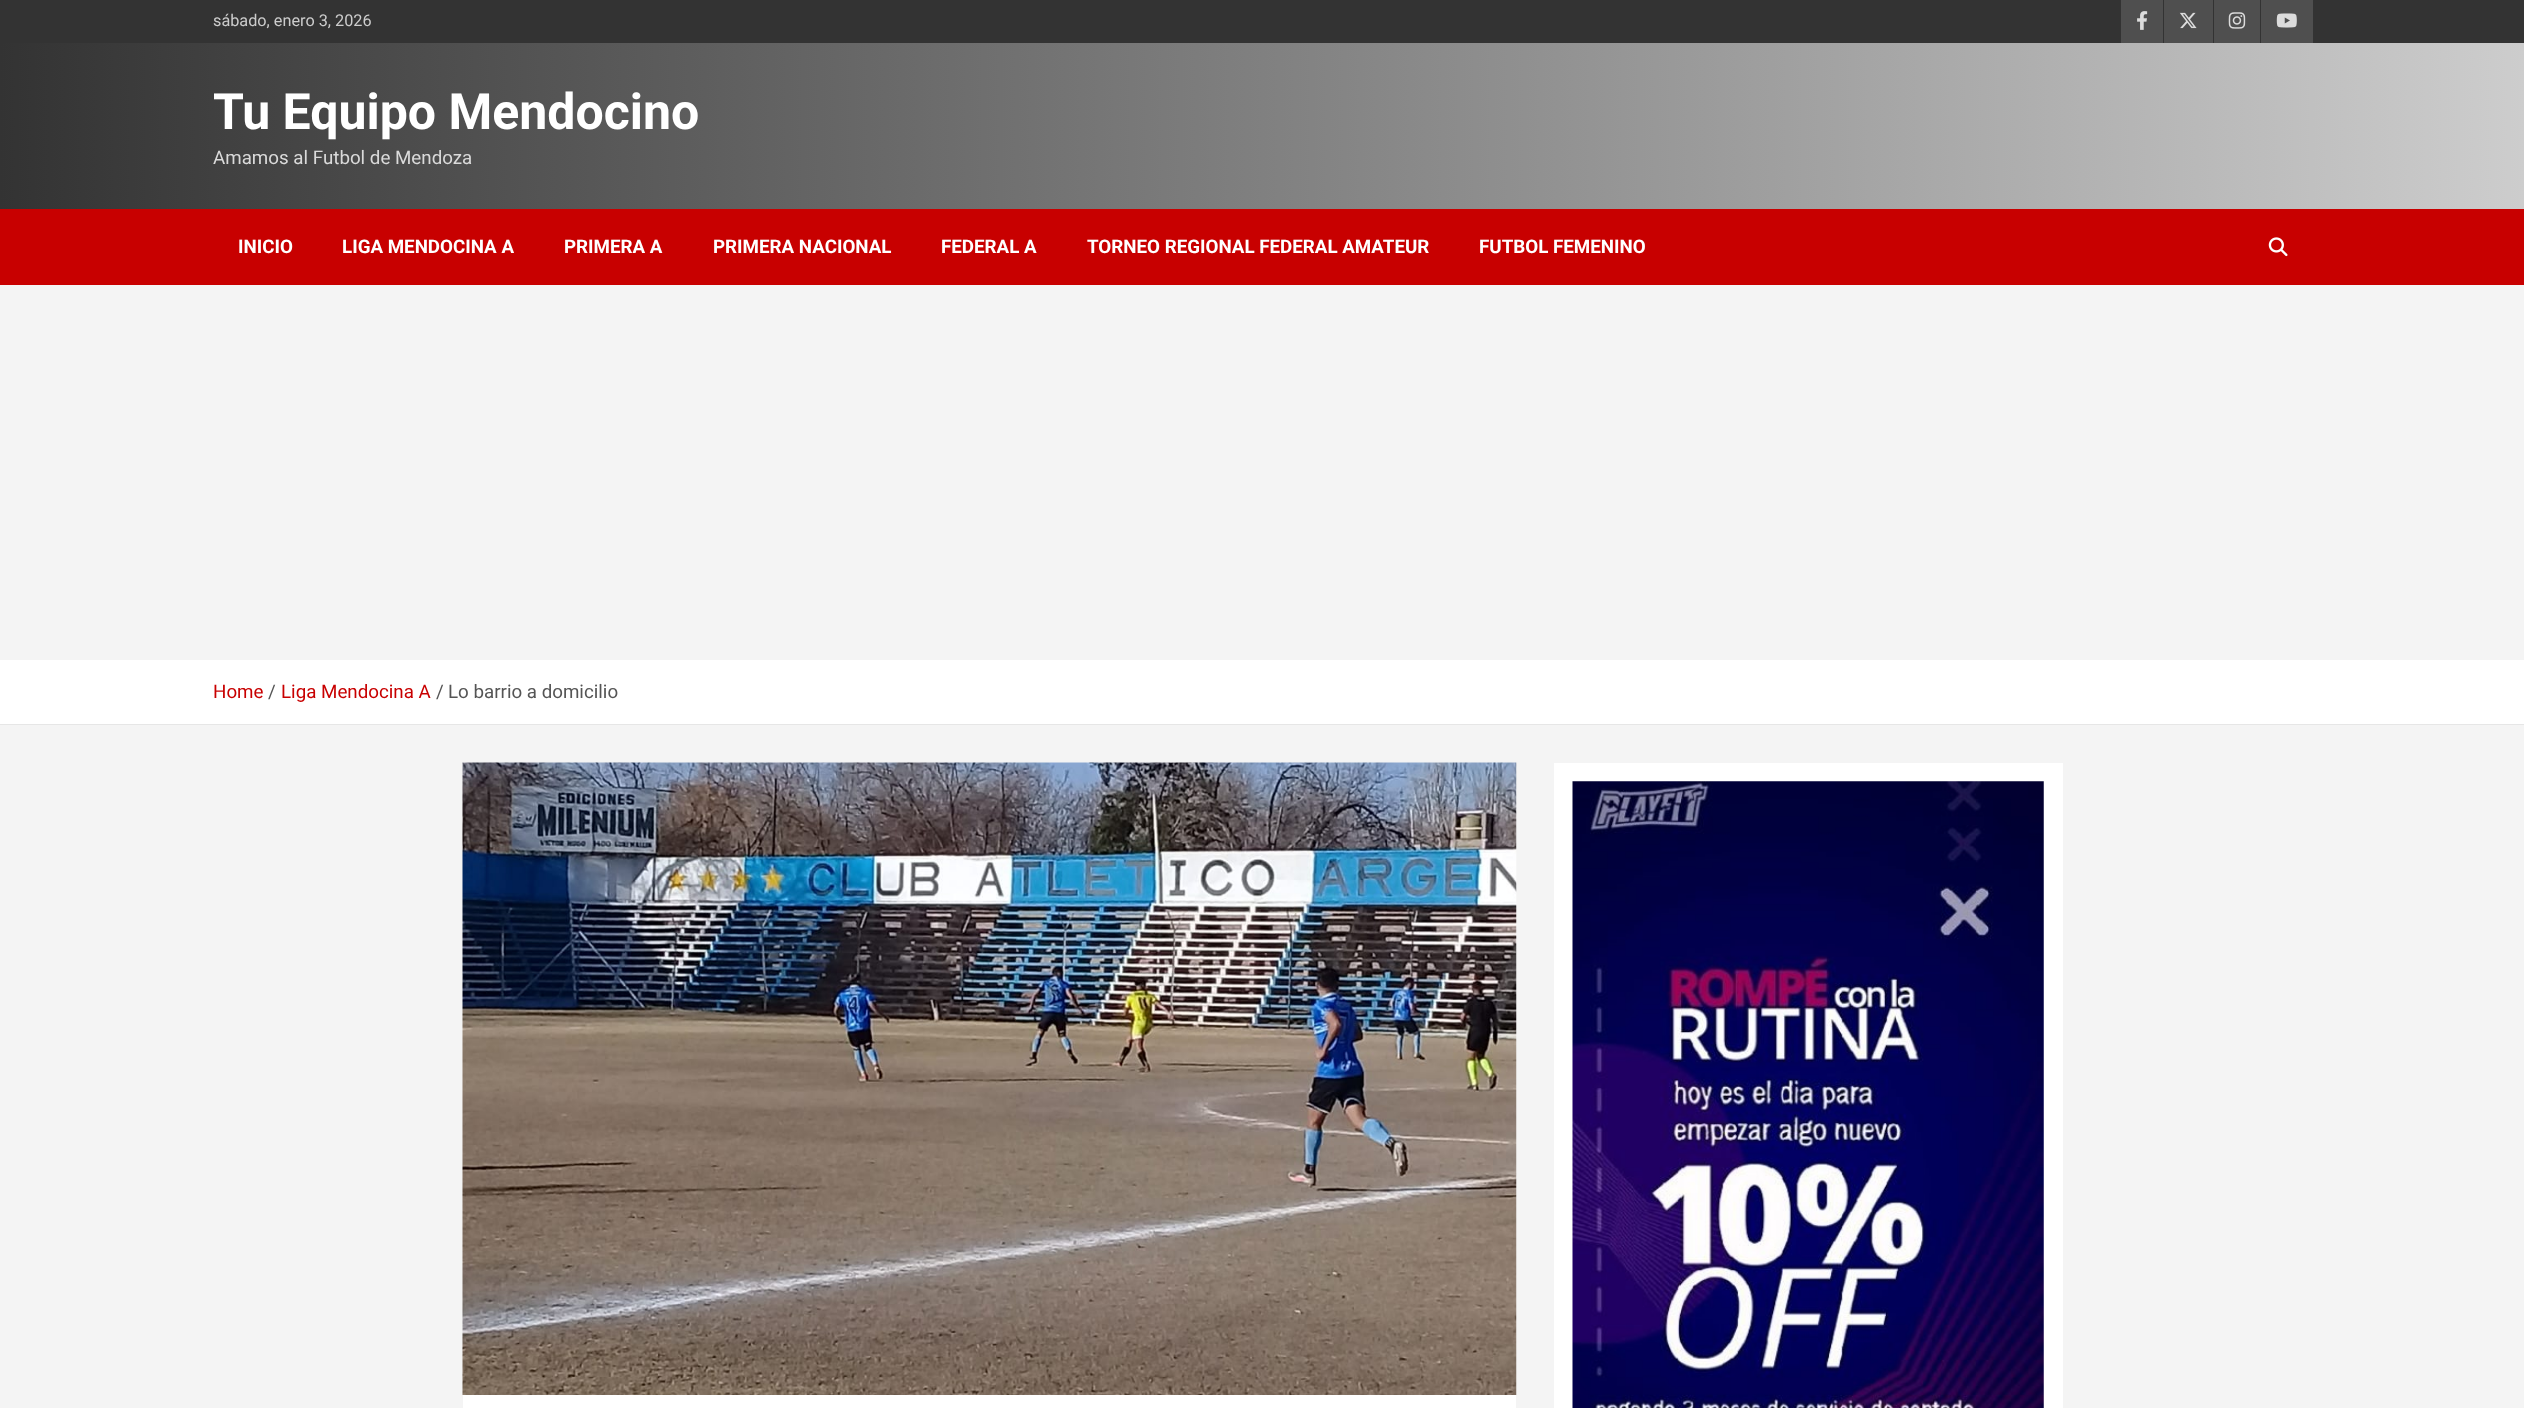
async function draw(canvas) {
  canvas.width = 2524;
  canvas.height = 1408;
  const ctx = canvas.getContext('2d');
  ctx.miterLimit = 4;
  ctx.fontKerning = 'normal';
  function label(s, x, y, font, color) {
    ctx.font = font;
    ctx.fillStyle = color;
    ctx.fillText(s, x, y);
  }
  function rect(x, y, w, h, color) {
    ctx.fillStyle = color;
    ctx.fillRect(x, y, w, h);
  }
  async function image(src, x, y, w, h) {
    const img = new Image();
    img.src = src;
    await img.decode();
    ctx.drawImage(img, x, y, w, h);
  }
  let gradient;

  rect(0, 0, 2524, 1408, '#f4f4f4');
  rect(0, 0, 2524, 43, '#333');
  label('sábado, enero 3, 2026', 213, 26, '16.25px Roboto', '#ccc');
  rect(2121, 0, 42, 43, '#4f4f4f');
  await image('assets/img1.png', 2137, 11, 11, 19);
  rect(2164, 0, 49, 43, '#4f4f4f');
  await image('assets/img2.png', 2179, 12, 18, 17);
  rect(2214, 0, 46, 43, '#4f4f4f');
  await image('assets/img3.png', 2228, 12, 18, 17);
  rect(2261, 0, 52, 43, '#4f4f4f');
  await image('assets/img4.png', 2276, 13, 21, 15);
  gradient = ctx.createLinearGradient(0, 126, 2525, 126);
  gradient.addColorStop(0, '#333');
  gradient.addColorStop(1, '#cdcdcd');
  ctx.fillStyle = gradient;
  ctx.fillRect(0, 43, 2524, 166);
  label('Tu Equipo Mendocino', 213, 129, 'bold 50px Roboto', '#fff');
  label('Amamos al Futbol de Mendoza', 213, 164, '18.75px Roboto', '#dadada');
  rect(0, 209, 2524, 76, '#c80000');
  label('INICIO', 238, 253, 'bold 18.75px Roboto', '#fff');
  label('LIGA MENDOCINA A', 342, 253, 'bold 18.75px Roboto', '#fff');
  label('PRIMERA A', 564, 253, 'bold 18.75px Roboto', '#fff');
  label('PRIMERA NACIONAL', 713, 253, 'bold 18.75px Roboto', '#fff');
  label('FEDERAL A', 941, 253, 'bold 18.75px Roboto', '#fff');
  label('TORNEO REGIONAL FEDERAL AMATEUR', 1087, 253, 'bold 18.75px Roboto', '#fff');
  label('FUTBOL FEMENINO', 1479, 253, 'bold 18.75px Roboto', '#fff');
  await image('assets/img5.png', 2268, 237, 20, 20);
  rect(0, 660, 2524, 64, '#fff');
  rect(0, 724, 2524, 1, '#e6e6e6');
  label('Home', 213, 698, '18.75px Roboto', '#c80000');
  label('/', 268, 698, '18.75px Roboto', '#555');
  label('Liga Mendocina A', 281, 698, '18.75px Roboto', '#c80000');
  label('/', 436, 698, '18.75px Roboto', '#555');
  label('Lo barrio a domicilio', 448, 698, '18.75px Roboto', '#555');
  rect(463, 1395, 1053, 13, '#fff');
  await image('assets/img6.png', 462, 762, 1055, 633);
  rect(1554, 763, 509, 645, '#fff');
  await image('assets/img7.png', 1572, 781, 472, 627);
}

draw(document.querySelector('canvas'));
